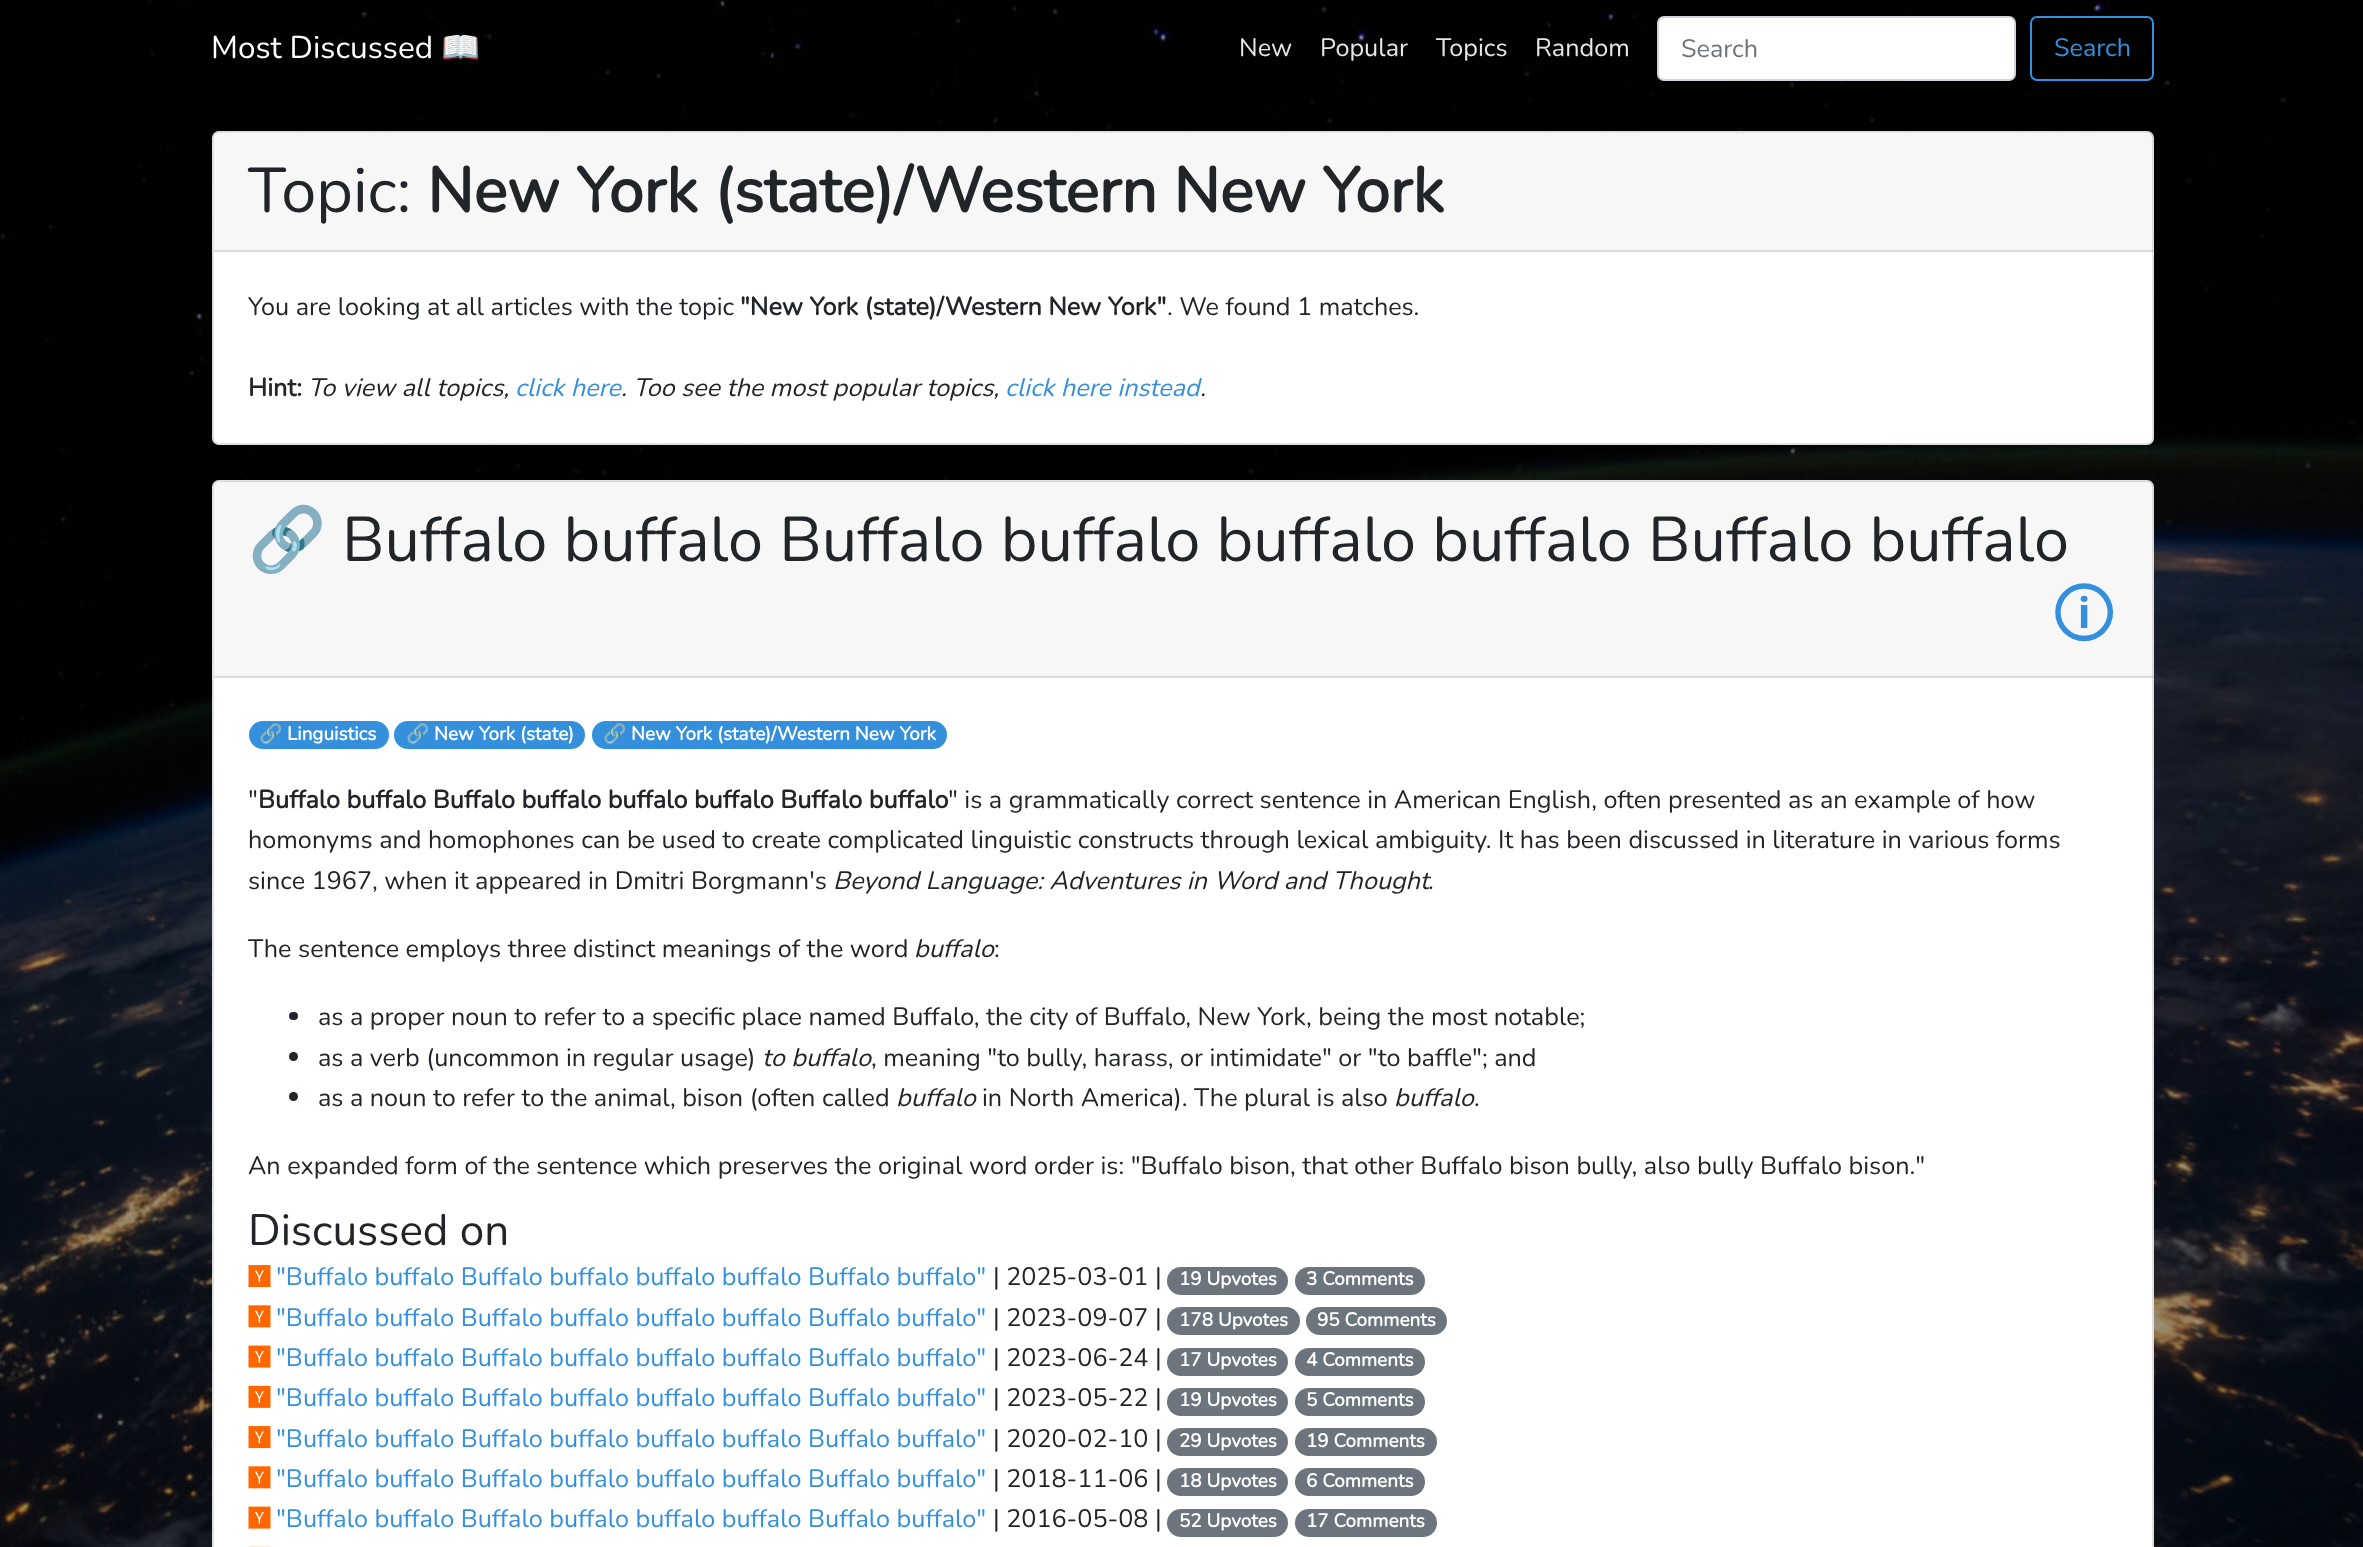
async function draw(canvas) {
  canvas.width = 2363;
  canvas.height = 1547;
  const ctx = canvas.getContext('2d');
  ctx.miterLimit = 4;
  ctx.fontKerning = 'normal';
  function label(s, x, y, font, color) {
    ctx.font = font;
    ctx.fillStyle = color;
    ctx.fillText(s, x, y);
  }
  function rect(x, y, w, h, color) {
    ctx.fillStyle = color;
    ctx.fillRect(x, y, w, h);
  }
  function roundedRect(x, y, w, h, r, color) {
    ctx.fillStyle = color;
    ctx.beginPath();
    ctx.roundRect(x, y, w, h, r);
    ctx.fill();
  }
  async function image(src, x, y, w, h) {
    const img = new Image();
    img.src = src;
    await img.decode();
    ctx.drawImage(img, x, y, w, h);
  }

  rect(0, 0, 2363, 1547, '#fff');
  await image('assets/img1.png', 0, 0, 2363, 1547);
  label('Most Discussed', 211, 58, '200 31.5px Nunito', '#fff');
  label('📖', 441, 58, '31.5px Noto Color Emoji', '#fff');
  label('New', 1239, 56, '200 25.2px Nunito', '#e6e6e6');
  label('Popular', 1320, 56, '200 25.2px Nunito', '#e6e6e6');
  label('Topics', 1436, 56, '200 25.2px Nunito', '#e6e6e6');
  label('Random', 1535, 56, '200 25.2px Nunito', '#e6e6e6');
  ctx.fillStyle = '#fff';
  ctx.beginPath();
  ctx.roundRect(1658, 17, 357, 63, 6);
  ctx.fill();
  ctx.strokeStyle = '#ced4da';
  ctx.lineWidth = 2;
  ctx.stroke();
  label('Search', 1681, 57, '200 25.2px Nunito', '#6c757d');
  ctx.beginPath();
  ctx.roundRect(2031, 17, 122, 63, 6);
  ctx.strokeStyle = '#3490dc';
  ctx.stroke();
  label('Search', 2054, 56, '200 25.2px Nunito', '#3490dc');
  roundedRect(212, 131, 1942, 314, 7, '#fff');
  ctx.beginPath();
  ctx.roundRect(213, 132, 1940, 312, 6);
  ctx.strokeStyle = '#0000001f';
  ctx.stroke();
  rect(214, 133, 1939, 119, '#00000008');
  rect(214, 250, 1939, 2, '#0000001f');
  label('Topic:', 248, 212, '200 63px Nunito', '#212529');
  label('New York (state)/Western New York', 427, 212, 'bold 63px Nunito', '#212529');
  label('You are looking at all articles with the topic', 248, 315, '200 25.2px Nunito', '#212529');
  label('"New York (state)/Western New York"', 740, 315, 'bold 25.2px Nunito', '#212529');
  label('. We found 1 matches.', 1167, 315, '200 25.2px Nunito', '#212529');
  label('Hint:', 248, 396, 'bold 25.2px Nunito', '#212529');
  label('To view all topics,', 308, 396, 'italic 200 25.2px Nunito', '#212529');
  label('click here', 515, 396, 'italic 200 25.2px Nunito', '#3490dc');
  label('. Too see the most popular topics,', 621, 396, 'italic 200 25.2px Nunito', '#212529');
  label('click here instead', 1005, 396, 'italic 200 25.2px Nunito', '#3490dc');
  label('.', 1200, 396, 'italic 200 25.2px Nunito', '#212529');
  roundedRect(212, 480, 1942, 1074, 7, '#fff');
  ctx.beginPath();
  ctx.roundRect(213, 481, 1940, 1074, 6);
  ctx.stroke();
  rect(214, 481, 1939, 196, '#00000008');
  rect(214, 676, 1939, 2, '#0000001f');
  label('🔗', 248, 561, '63px Noto Color Emoji', '#212529');
  label('Buffalo buffalo Buffalo buffalo buffalo buffalo Buffalo buffalo', 342, 561, '200 63px Nunito', '#212529');
  label('🛈', 2052, 636, '63px "Noto Sans Symbols 2"', '#3490dc');
  roundedRect(249, 721, 140, 28, 14, '#3490dc');
  label('🔗', 259, 740, 'bold 18.9px Noto Color Emoji', '#fff');
  label('Linguistics', 287, 740, 'bold 18.9px Nunito', '#fff');
  roundedRect(394, 721, 191, 28, 14, '#3490dc');
  label('🔗', 406, 740, 'bold 18.9px Noto Color Emoji', '#fff');
  label('New York (state)', 434, 740, 'bold 18.9px Nunito', '#fff');
  roundedRect(592, 721, 355, 28, 14, '#3490dc');
  label('🔗', 603, 740, 'bold 18.9px Noto Color Emoji', '#fff');
  label('New York (state)/Western New York', 631, 740, 'bold 18.9px Nunito', '#fff');
  label('"', 248, 808, '200 25.2px Nunito', '#212529');
  label('Buffalo buffalo Buffalo buffalo buffalo buffalo Buffalo buffalo', 258, 808, 'bold 25.2px Nunito', '#212529');
  label('" is a grammatically correct sentence in American English, often presented as an example of how', 948, 808, '200 25.2px Nunito', '#212529');
  label('homonyms and homophones can be used to create complicated linguistic constructs through lexical ambiguity. It has been discussed in literature in various forms', 248, 848, '200 25.2px Nunito', '#212529');
  label('since 1967, when it appeared in Dmitri Borgmann\'s', 248, 889, '200 25.2px Nunito', '#212529');
  label('Beyond Language: Adventures in Word and Thought', 833, 889, 'italic 200 25.2px Nunito', '#212529');
  label('.', 1428, 889, '200 25.2px Nunito', '#212529');
  label('The sentence employs three distinct meanings of the word', 248, 957, '200 25.2px Nunito', '#212529');
  label('buffalo', 914, 957, 'italic 200 25.2px Nunito', '#212529');
  label(':', 994, 957, '200 25.2px Nunito', '#212529');
  roundedRect(289, 1012, 9, 8, 4, '#212529');
  label('as a proper noun to refer to a specific place named Buffalo, the city of Buffalo, New York, being the most notable;', 318, 1025, '200 25.2px Nunito', '#212529');
  ctx.beginPath();
  ctx.arc(293.5, 1056.5, 4.5, 0, 2 * Math.PI);
  ctx.fill();
  label('as a verb (uncommon in regular usage)', 318, 1066, '200 25.2px Nunito', '#212529');
  label('to buffalo', 762, 1066, 'italic 200 25.2px Nunito', '#212529');
  label(', meaning "to bully, harass, or intimidate" or "to baffle"; and', 871, 1066, '200 25.2px Nunito', '#212529');
  ctx.beginPath();
  ctx.arc(293.5, 1096.5, 4.5, 0, 2 * Math.PI);
  ctx.fill();
  label('as a noun to refer to the animal, bison (often called', 318, 1106, '200 25.2px Nunito', '#212529');
  label('buffalo', 896, 1106, 'italic 200 25.2px Nunito', '#212529');
  label('in North America). The plural is also', 982, 1106, '200 25.2px Nunito', '#212529');
  label('buffalo', 1394, 1106, 'italic 200 25.2px Nunito', '#212529');
  label('.', 1474, 1106, '200 25.2px Nunito', '#212529');
  label('An expanded form of the sentence which preserves the original word order is: "Buffalo bison, that other Buffalo bison bully, also bully Buffalo bison."', 248, 1174, '200 25.2px Nunito', '#212529');
  label('Discussed on', 248, 1245, '200 44px Nunito', '#212529');
  await image('assets/img2.png', 248, 1265, 23, 23);
  label('"Buffalo buffalo Buffalo buffalo buffalo buffalo Buffalo buffalo"', 276, 1285, '200 25.2px Nunito', '#3490dc');
  label('| 2025-03-01 |', 993, 1285, '200 25.2px Nunito', '#212529');
  roundedRect(1167, 1267, 121, 28, 14, '#6c757d');
  label('19 Upvotes', 1179, 1285, 'bold 18.9px Nunito', '#fff');
  roundedRect(1295, 1267, 130, 28, 14, '#6c757d');
  label('3 Comments', 1306, 1285, 'bold 18.9px Nunito', '#fff');
  await image('assets/img3.png', 248, 1305, 23, 23);
  label('"Buffalo buffalo Buffalo buffalo buffalo buffalo Buffalo buffalo"', 276, 1326, '200 25.2px Nunito', '#3490dc');
  label('| 2023-09-07 |', 993, 1326, '200 25.2px Nunito', '#212529');
  roundedRect(1167, 1307, 133, 28, 14, '#6c757d');
  label('178 Upvotes', 1179, 1326, 'bold 18.9px Nunito', '#fff');
  roundedRect(1306, 1307, 141, 28, 14, '#6c757d');
  label('95 Comments', 1317, 1326, 'bold 18.9px Nunito', '#fff');
  await image('assets/img4.png', 248, 1345, 23, 23);
  label('"Buffalo buffalo Buffalo buffalo buffalo buffalo Buffalo buffalo"', 276, 1366, '200 25.2px Nunito', '#3490dc');
  label('| 2023-06-24 |', 993, 1366, '200 25.2px Nunito', '#212529');
  roundedRect(1167, 1348, 121, 28, 14, '#6c757d');
  label('17 Upvotes', 1179, 1366, 'bold 18.9px Nunito', '#fff');
  roundedRect(1295, 1348, 130, 28, 14, '#6c757d');
  label('4 Comments', 1306, 1366, 'bold 18.9px Nunito', '#fff');
  await image('assets/img5.png', 248, 1385, 23, 23);
  label('"Buffalo buffalo Buffalo buffalo buffalo buffalo Buffalo buffalo"', 276, 1406, '200 25.2px Nunito', '#3490dc');
  label('| 2023-05-22 |', 993, 1406, '200 25.2px Nunito', '#212529');
  roundedRect(1167, 1388, 121, 28, 14, '#6c757d');
  label('19 Upvotes', 1179, 1406, 'bold 18.9px Nunito', '#fff');
  roundedRect(1295, 1388, 130, 28, 14, '#6c757d');
  label('5 Comments', 1306, 1406, 'bold 18.9px Nunito', '#fff');
  await image('assets/img2.png', 248, 1426, 23, 23);
  label('"Buffalo buffalo Buffalo buffalo buffalo buffalo Buffalo buffalo"', 276, 1447, '200 25.2px Nunito', '#3490dc');
  label('| 2020-02-10 |', 993, 1447, '200 25.2px Nunito', '#212529');
  roundedRect(1167, 1428, 121, 28, 14, '#6c757d');
  label('29 Upvotes', 1179, 1447, 'bold 18.9px Nunito', '#fff');
  roundedRect(1295, 1428, 142, 28, 14, '#6c757d');
  label('19 Comments', 1306, 1447, 'bold 18.9px Nunito', '#fff');
  await image('assets/img3.png', 248, 1466, 23, 23);
  label('"Buffalo buffalo Buffalo buffalo buffalo buffalo Buffalo buffalo"', 276, 1487, '200 25.2px Nunito', '#3490dc');
  label('| 2018-11-06 |', 993, 1487, '200 25.2px Nunito', '#212529');
  roundedRect(1167, 1468, 121, 28, 14, '#6c757d');
  label('18 Upvotes', 1179, 1487, 'bold 18.9px Nunito', '#fff');
  roundedRect(1295, 1468, 130, 28, 14, '#6c757d');
  label('6 Comments', 1306, 1487, 'bold 18.9px Nunito', '#fff');
  await image('assets/img4.png', 248, 1506, 23, 23);
  label('"Buffalo buffalo Buffalo buffalo buffalo buffalo Buffalo buffalo"', 276, 1527, '200 25.2px Nunito', '#3490dc');
  label('| 2016-05-08 |', 993, 1527, '200 25.2px Nunito', '#212529');
  roundedRect(1167, 1509, 121, 28, 14, '#6c757d');
  label('52 Upvotes', 1179, 1527, 'bold 18.9px Nunito', '#fff');
  roundedRect(1295, 1509, 142, 28, 14, '#6c757d');
  label('17 Comments', 1306, 1527, 'bold 18.9px Nunito', '#fff');
  await image('assets/img6.png', 248, 1546, 23, 1);
}

draw(document.querySelector('canvas'));
